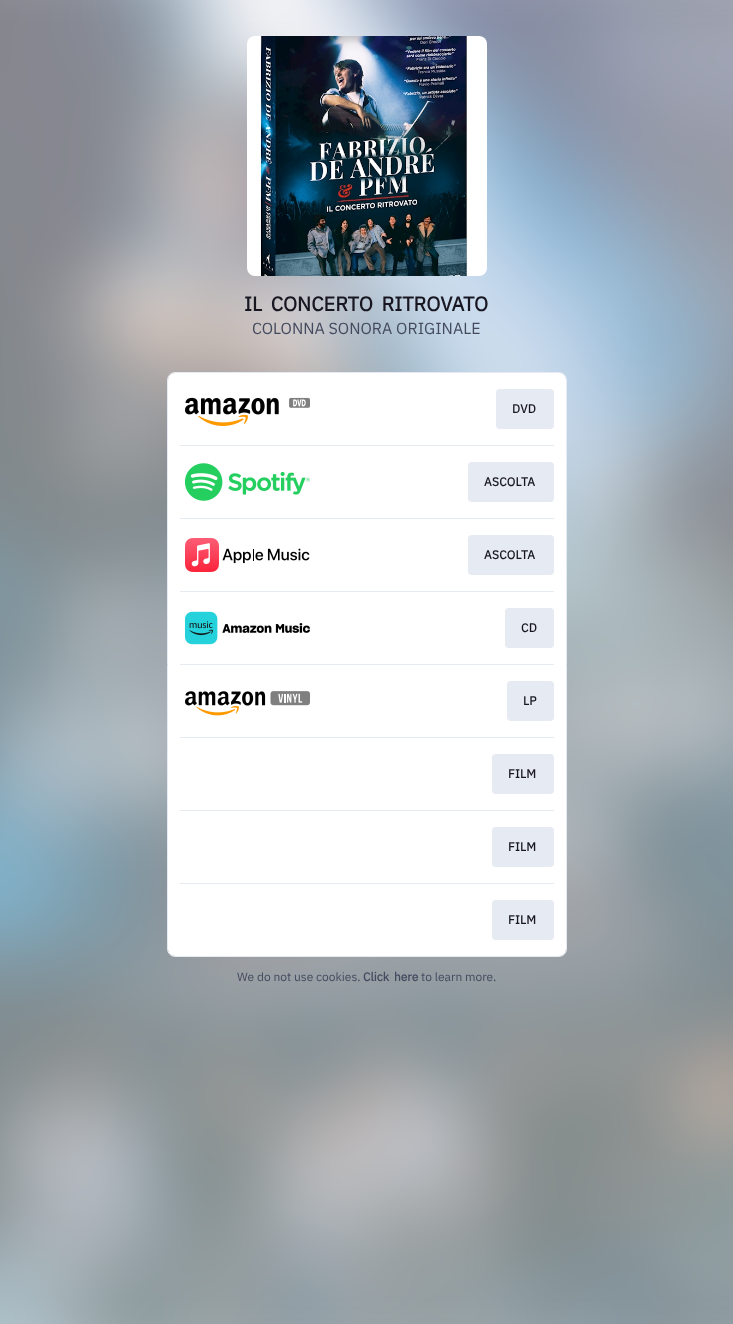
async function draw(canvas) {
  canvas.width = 733;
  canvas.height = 1324;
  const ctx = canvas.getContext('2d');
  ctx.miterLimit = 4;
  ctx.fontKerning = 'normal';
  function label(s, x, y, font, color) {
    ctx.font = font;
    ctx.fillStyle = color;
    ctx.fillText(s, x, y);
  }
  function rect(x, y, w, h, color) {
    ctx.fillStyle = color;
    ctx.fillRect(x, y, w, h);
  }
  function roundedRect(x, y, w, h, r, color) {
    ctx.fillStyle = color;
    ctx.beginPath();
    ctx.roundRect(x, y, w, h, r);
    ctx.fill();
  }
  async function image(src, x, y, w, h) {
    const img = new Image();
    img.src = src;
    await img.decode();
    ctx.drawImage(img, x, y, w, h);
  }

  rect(0, 0, 733, 1324, '#fff');
  await image('assets/img1.png', 0, 0, 733, 1324);
  await image('assets/img2.png', 247, 36, 240, 240);
  ctx.wordSpacing = '4px';
  label('IL CONCERTO RITROVATO', 244, 311, 'bold 20px IBM Plex Sans', '#181721');
  ctx.wordSpacing = '0px';
  label('COLONNA SONORA ORIGINALE', 252, 334, '16px IBM Plex Sans', '#454b5f');
  ctx.beginPath();
  ctx.roundRect(167.5, 372.5, 399, 584, 7.5);
  ctx.strokeStyle = '#e6eaf2';
  ctx.stroke();
  roundedRect(168, 373, 398, 583, 7, '#fff');
  await image('assets/img3.png', 185, 397, 125, 29);
  roundedRect(496, 389, 58, 40, 4, '#e6eaf2');
  ctx.letterSpacing = '0.25px';
  label('DVD', 512, 413, 'bold 12px IBM Plex Sans', '#181721');
  rect(180, 445, 374, 1, '#e6eaf2');
  await image('assets/img4.png', 185, 463, 125, 38);
  roundedRect(468, 462, 86, 40, 4, '#e6eaf2');
  label('ASCOLTA', 484, 486, 'bold 12px IBM Plex Sans', '#181721');
  rect(180, 518, 374, 1, '#e6eaf2');
  await image('assets/img5.png', 185, 538, 125, 34);
  roundedRect(468, 535, 86, 40, 4, '#e6eaf2');
  label('ASCOLTA', 484, 559, 'bold 12px IBM Plex Sans', '#181721');
  rect(180, 591, 374, 1, '#e6eaf2');
  await image('assets/img6.png', 185, 611, 125, 34);
  roundedRect(505, 608, 49, 40, 4, '#e6eaf2');
  label('CD', 521, 632, 'bold 12px IBM Plex Sans', '#181721');
  rect(180, 664, 374, 1, '#e6eaf2');
  await image('assets/img7.png', 185, 691, 125, 25);
  roundedRect(507, 681, 47, 40, 4, '#e6eaf2');
  label('LP', 523, 705, 'bold 12px IBM Plex Sans', '#181721');
  rect(180, 737, 374, 1, '#e6eaf2');
  roundedRect(492, 754, 62, 40, 4, '#e6eaf2');
  label('FILM', 508, 778, 'bold 12px IBM Plex Sans', '#181721');
  rect(180, 810, 374, 1, '#e6eaf2');
  roundedRect(492, 827, 62, 40, 4, '#e6eaf2');
  label('FILM', 508, 851, 'bold 12px IBM Plex Sans', '#181721');
  rect(180, 883, 374, 1, '#e6eaf2');
  roundedRect(492, 900, 62, 40, 4, '#e6eaf2');
  label('FILM', 508, 924, 'bold 12px IBM Plex Sans', '#181721');
  ctx.letterSpacing = '0px';
  label('We do not use cookies.', 237, 981, '12px IBM Plex Sans', '#454b5f');
  ctx.wordSpacing = '2px';
  label('Click here', 363, 981, 'bold 12px IBM Plex Sans', '#454b5f');
  ctx.wordSpacing = '0px';
  label('to learn more.', 421, 981, '12px IBM Plex Sans', '#454b5f');
}

draw(document.querySelector('canvas'));
